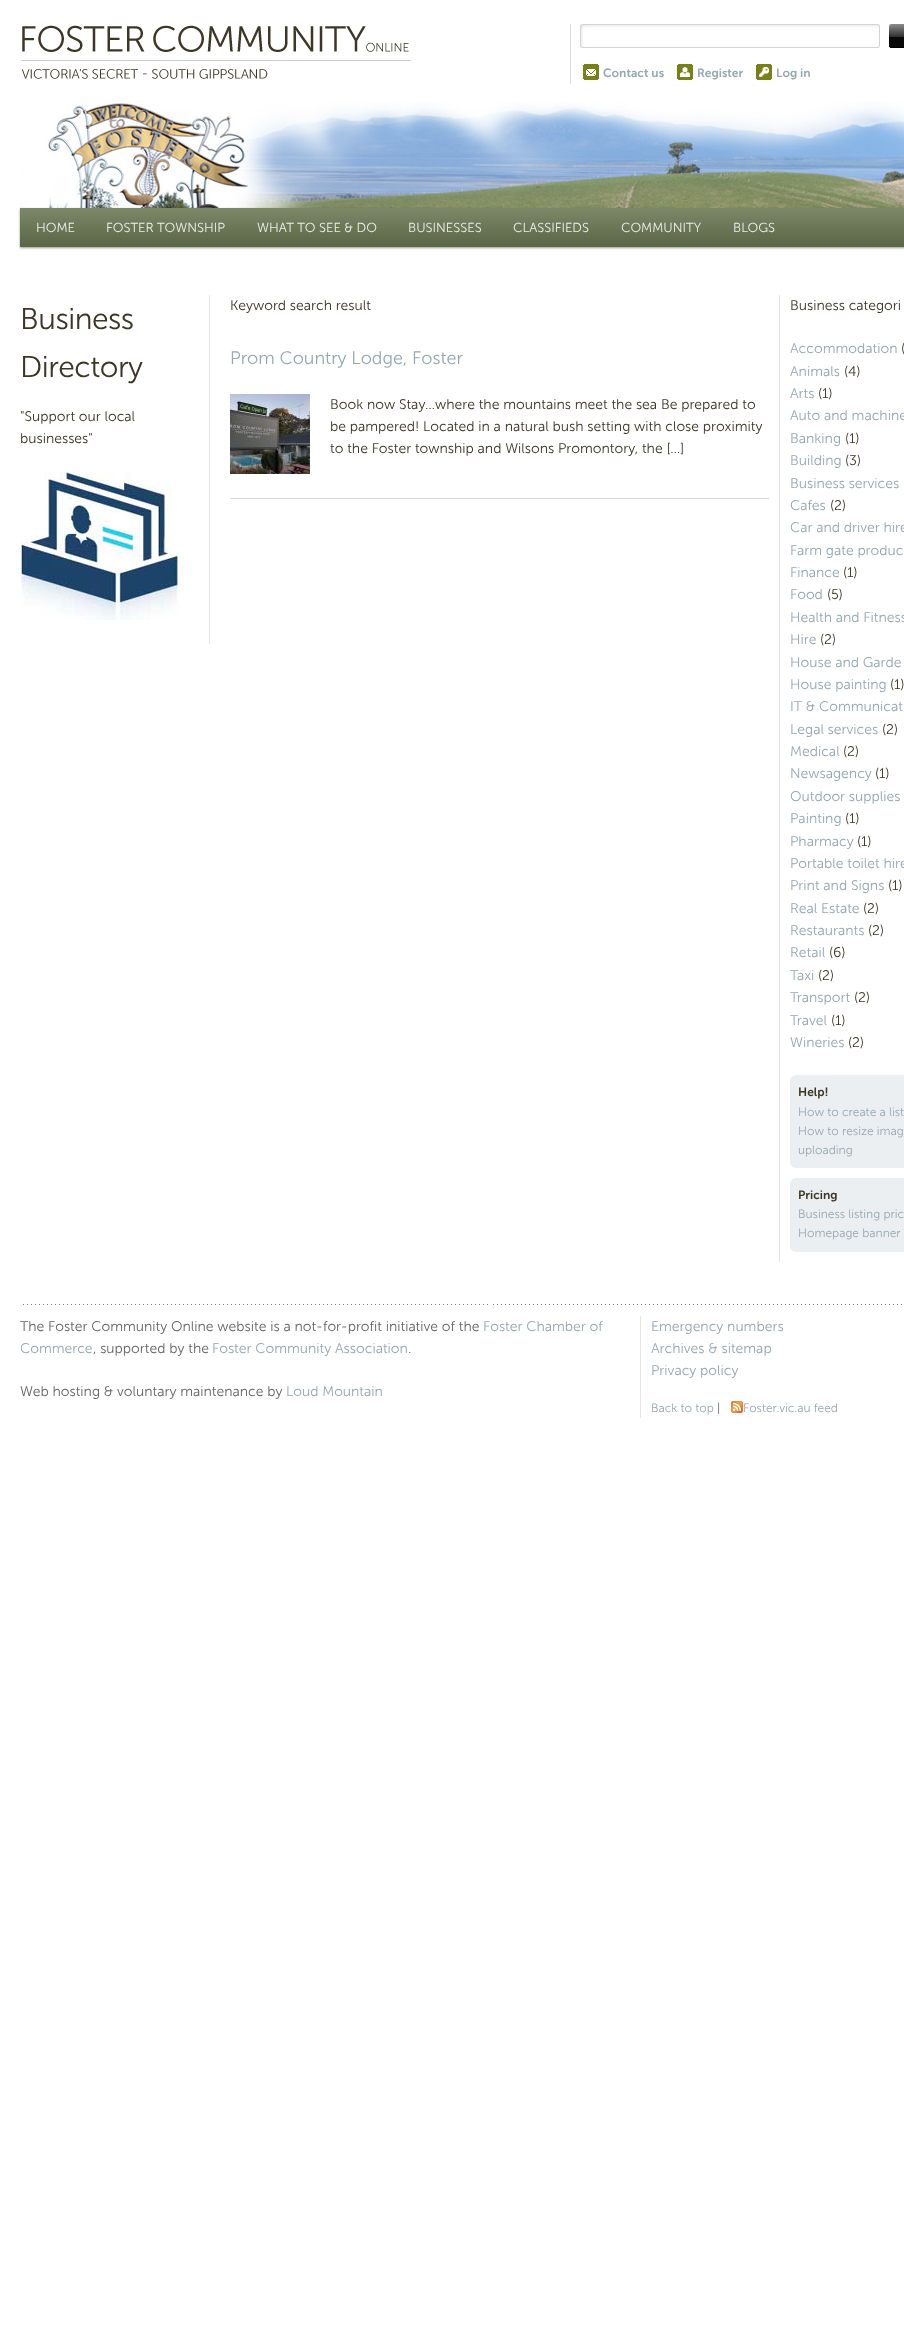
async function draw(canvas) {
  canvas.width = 904;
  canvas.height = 2330;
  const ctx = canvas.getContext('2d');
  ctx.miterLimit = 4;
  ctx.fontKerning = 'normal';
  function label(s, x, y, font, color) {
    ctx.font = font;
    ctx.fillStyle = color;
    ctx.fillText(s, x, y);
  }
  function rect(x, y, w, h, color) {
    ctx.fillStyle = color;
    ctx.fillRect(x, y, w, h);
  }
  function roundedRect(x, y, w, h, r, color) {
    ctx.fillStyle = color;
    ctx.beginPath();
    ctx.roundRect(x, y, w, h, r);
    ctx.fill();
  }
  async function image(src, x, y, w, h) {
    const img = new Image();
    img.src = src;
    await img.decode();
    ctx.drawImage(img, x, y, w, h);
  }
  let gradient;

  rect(0, 0, 904, 2330, '#fff');
  await image('assets/img1.png', 21, 25, 390, 54);
  rect(570, 24, 1, 62, '#ddd');
  await image('assets/img2.png', 580, 24, 300, 24);
  await image('assets/img3.png', 889, 24, 15, 24);
  await image('assets/img4.png', 583, 64, 16, 16);
  label('Contact us', 603, 77, '600 12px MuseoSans', '#95a8b2');
  await image('assets/img5.png', 677, 64, 16, 16);
  label('Register', 697, 77, '600 12px MuseoSans', '#95a8b2');
  await image('assets/img6.png', 756, 64, 16, 16);
  label('Log in', 776, 77, '600 12px MuseoSans', '#95a8b2');
  await image('assets/img7.png', 20, 84, 884, 124);
  ctx.fillStyle = '#00000066';
  ctx.filter = 'blur(1px)';
  ctx.beginPath();
  ctx.rect(20, 209, 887, 39);
  ctx.fill();
  ctx.filter = 'none';
  gradient = ctx.createLinearGradient(500, 208, 500, 247);
  gradient.addColorStop(0, '#7c8867');
  gradient.addColorStop(1, '#596544');
  ctx.fillStyle = gradient;
  ctx.fillRect(20, 208, 884, 39);
  label('HOME', 36, 232, '300 13px MuseoSans', '#eee');
  label('FOSTER TOWNSHIP', 106, 232, '300 13px MuseoSans', '#eee');
  label('WHAT TO SEE & DO', 257, 232, '300 13px MuseoSans', '#eee');
  label('BUSINESSES', 408, 232, '300 13px MuseoSans', '#eee');
  label('CLASSIFIEDS', 513, 232, '300 13px MuseoSans', '#eee');
  label('COMMUNITY', 621, 232, '300 13px MuseoSans', '#eee');
  label('BLOGS', 733, 232, '300 13px MuseoSans', '#eee');
  rect(209, 295, 1, 349, '#e5e5e5');
  ctx.letterSpacing = '-0.5px';
  label('Business', 20, 329, '300 30px MuseoSans', '#3c3625');
  label('Directory', 20, 377, '300 30px MuseoSans', '#3c3625');
  ctx.letterSpacing = '0px';
  label('"Support our local', 20, 421, '300 14px MuseoSans', '#3c3625');
  label('businesses"', 20, 443, '300 14px MuseoSans', '#3c3625');
  await image('assets/img8.png', 20, 472, 164, 148);
  label('Keyword search result', 230, 310, '300 14px MuseoSans', '#3c3625');
  rect(230, 498, 539, 1, '#dadada');
  label('Prom Country Lodge, Foster', 230, 364, '300 18px MuseoSans', '#95a8b2');
  await image('assets/img9.png', 230, 394, 80, 80);
  label('Book now Stay…where the mountains meet the sea Be prepared to', 330, 409, '300 14px MuseoSans', '#3c3625');
  label('be pampered! Located in a natural bush setting with close proximity', 330, 431, '300 14px MuseoSans', '#3c3625');
  label('to the Foster township and Wilsons Promontory, the […]', 330, 453, '300 14px MuseoSans', '#3c3625');
  rect(779, 295, 1, 967, '#e5e5e5');
  label('Business categori', 790, 310, '300 14px MuseoSans', '#3c3625');
  label('Accommodation', 790, 353, '300 14px MuseoSans', '#95a8b2');
  label('(', 901, 353, '300 14px MuseoSans', '#3c3625');
  label('Animals', 790, 376, '300 14px MuseoSans', '#95a8b2');
  label('(4)', 844, 376, '300 14px MuseoSans', '#3c3625');
  label('Arts', 790, 398, '300 14px MuseoSans', '#95a8b2');
  label('(1)', 818, 398, '300 14px MuseoSans', '#3c3625');
  label('Auto and machine', 790, 420, '300 14px MuseoSans', '#95a8b2');
  label('Banking', 790, 443, '300 14px MuseoSans', '#95a8b2');
  label('(1)', 845, 443, '300 14px MuseoSans', '#3c3625');
  label('Building', 790, 465, '300 14px MuseoSans', '#95a8b2');
  label('(3)', 845, 465, '300 14px MuseoSans', '#3c3625');
  label('Business services', 790, 488, '300 14px MuseoSans', '#95a8b2');
  label('Cafes', 790, 510, '300 14px MuseoSans', '#95a8b2');
  label('(2)', 830, 510, '300 14px MuseoSans', '#3c3625');
  label('Car and driver hire', 790, 532, '300 14px MuseoSans', '#95a8b2');
  label('Farm gate produc', 790, 555, '300 14px MuseoSans', '#95a8b2');
  label('Finance', 790, 577, '300 14px MuseoSans', '#95a8b2');
  label('(1)', 843, 577, '300 14px MuseoSans', '#3c3625');
  label('Food', 790, 599, '300 14px MuseoSans', '#95a8b2');
  label('(5)', 827, 599, '300 14px MuseoSans', '#3c3625');
  label('Health and Fitness', 790, 622, '300 14px MuseoSans', '#95a8b2');
  label('Hire', 790, 644, '300 14px MuseoSans', '#95a8b2');
  label('(2)', 820, 644, '300 14px MuseoSans', '#3c3625');
  label('House and Garde', 790, 667, '300 14px MuseoSans', '#95a8b2');
  label('House painting', 790, 689, '300 14px MuseoSans', '#95a8b2');
  label('(1)', 890, 689, '300 14px MuseoSans', '#3c3625');
  label('IT & Communicat', 790, 711, '300 14px MuseoSans', '#95a8b2');
  label('Legal services', 790, 734, '300 14px MuseoSans', '#95a8b2');
  label('(2)', 882, 734, '300 14px MuseoSans', '#3c3625');
  label('Medical', 790, 756, '300 14px MuseoSans', '#95a8b2');
  label('(2)', 843, 756, '300 14px MuseoSans', '#3c3625');
  label('Newsagency', 790, 778, '300 14px MuseoSans', '#95a8b2');
  label('(1)', 875, 778, '300 14px MuseoSans', '#3c3625');
  label('Outdoor supplies', 790, 801, '300 14px MuseoSans', '#95a8b2');
  label('Painting', 790, 823, '300 14px MuseoSans', '#95a8b2');
  label('(1)', 845, 823, '300 14px MuseoSans', '#3c3625');
  label('Pharmacy', 790, 846, '300 14px MuseoSans', '#95a8b2');
  label('(1)', 857, 846, '300 14px MuseoSans', '#3c3625');
  label('Portable toilet hire', 790, 868, '300 14px MuseoSans', '#95a8b2');
  label('Print and Signs', 790, 890, '300 14px MuseoSans', '#95a8b2');
  label('(1)', 888, 890, '300 14px MuseoSans', '#3c3625');
  label('Real Estate', 790, 913, '300 14px MuseoSans', '#95a8b2');
  label('(2)', 863, 913, '300 14px MuseoSans', '#3c3625');
  label('Restaurants', 790, 935, '300 14px MuseoSans', '#95a8b2');
  label('(2)', 868, 935, '300 14px MuseoSans', '#3c3625');
  label('Retail', 790, 957, '300 14px MuseoSans', '#95a8b2');
  label('(6)', 829, 957, '300 14px MuseoSans', '#3c3625');
  label('Taxi', 790, 980, '300 14px MuseoSans', '#95a8b2');
  label('(2)', 818, 980, '300 14px MuseoSans', '#3c3625');
  label('Transport', 790, 1002, '300 14px MuseoSans', '#95a8b2');
  label('(2)', 854, 1002, '300 14px MuseoSans', '#3c3625');
  label('Travel', 790, 1025, '300 14px MuseoSans', '#95a8b2');
  label('(1)', 831, 1025, '300 14px MuseoSans', '#3c3625');
  label('Wineries', 790, 1047, '300 14px MuseoSans', '#95a8b2');
  label('(2)', 848, 1047, '300 14px MuseoSans', '#3c3625');
  roundedRect(790, 1075, 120, 93, 6, '#ebeff2');
  label('Help!', 798, 1096, '600 12px MuseoSans', '#3c3625');
  label('How to create a list', 798, 1116, '300 12px MuseoSans', '#95a8b2');
  label('How to resize imag', 798, 1135, '300 12px MuseoSans', '#95a8b2');
  label('uploading', 798, 1154, '300 12px MuseoSans', '#95a8b2');
  roundedRect(790, 1178, 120, 74, 6, '#ebeff2');
  label('Pricing', 798, 1199, '600 12px MuseoSans', '#3c3625');
  label('Business listing pric', 798, 1218, '300 12px MuseoSans', '#95a8b2');
  label('Homepage banner', 798, 1237, '300 12px MuseoSans', '#95a8b2');
  await image('assets/img10.png', 23, 1304, 879, 1);
  label('The Foster Community Online website is a not-for-profit initiative of the', 20, 1331, '300 14px MuseoSans', '#666');
  label('Foster Chamber of', 483, 1331, '300 14px MuseoSans', '#95a8b2');
  label('Commerce', 20, 1353, '300 14px MuseoSans', '#95a8b2');
  label(', supported by the', 93, 1353, '300 14px MuseoSans', '#666');
  label('Foster Community Association', 212, 1353, '300 14px MuseoSans', '#95a8b2');
  label('.', 408, 1353, '300 14px MuseoSans', '#666');
  label('Web hosting & voluntary maintenance by', 20, 1396, '300 14px MuseoSans', '#666');
  label('Loud Mountain', 286, 1396, '300 14px MuseoSans', '#95a8b2');
  rect(640, 1316, 1, 102, '#e5e5e5');
  label('Emergency numbers', 651, 1331, '300 14px MuseoSans', '#95a8b2');
  label('Archives & sitemap', 651, 1353, '300 14px MuseoSans', '#95a8b2');
  label('Privacy policy', 651, 1375, '300 14px MuseoSans', '#95a8b2');
  label('Back to top', 651, 1412, '300 12px MuseoSans', '#95a8b2');
  label('|', 717, 1412, '300 12px MuseoSans', '#666');
  await image('assets/img11.png', 731, 1401, 12, 12);
  label('Foster.vic.au feed', 743, 1412, '300 12px MuseoSans', '#95a8b2');
}

draw(document.querySelector('canvas'));
